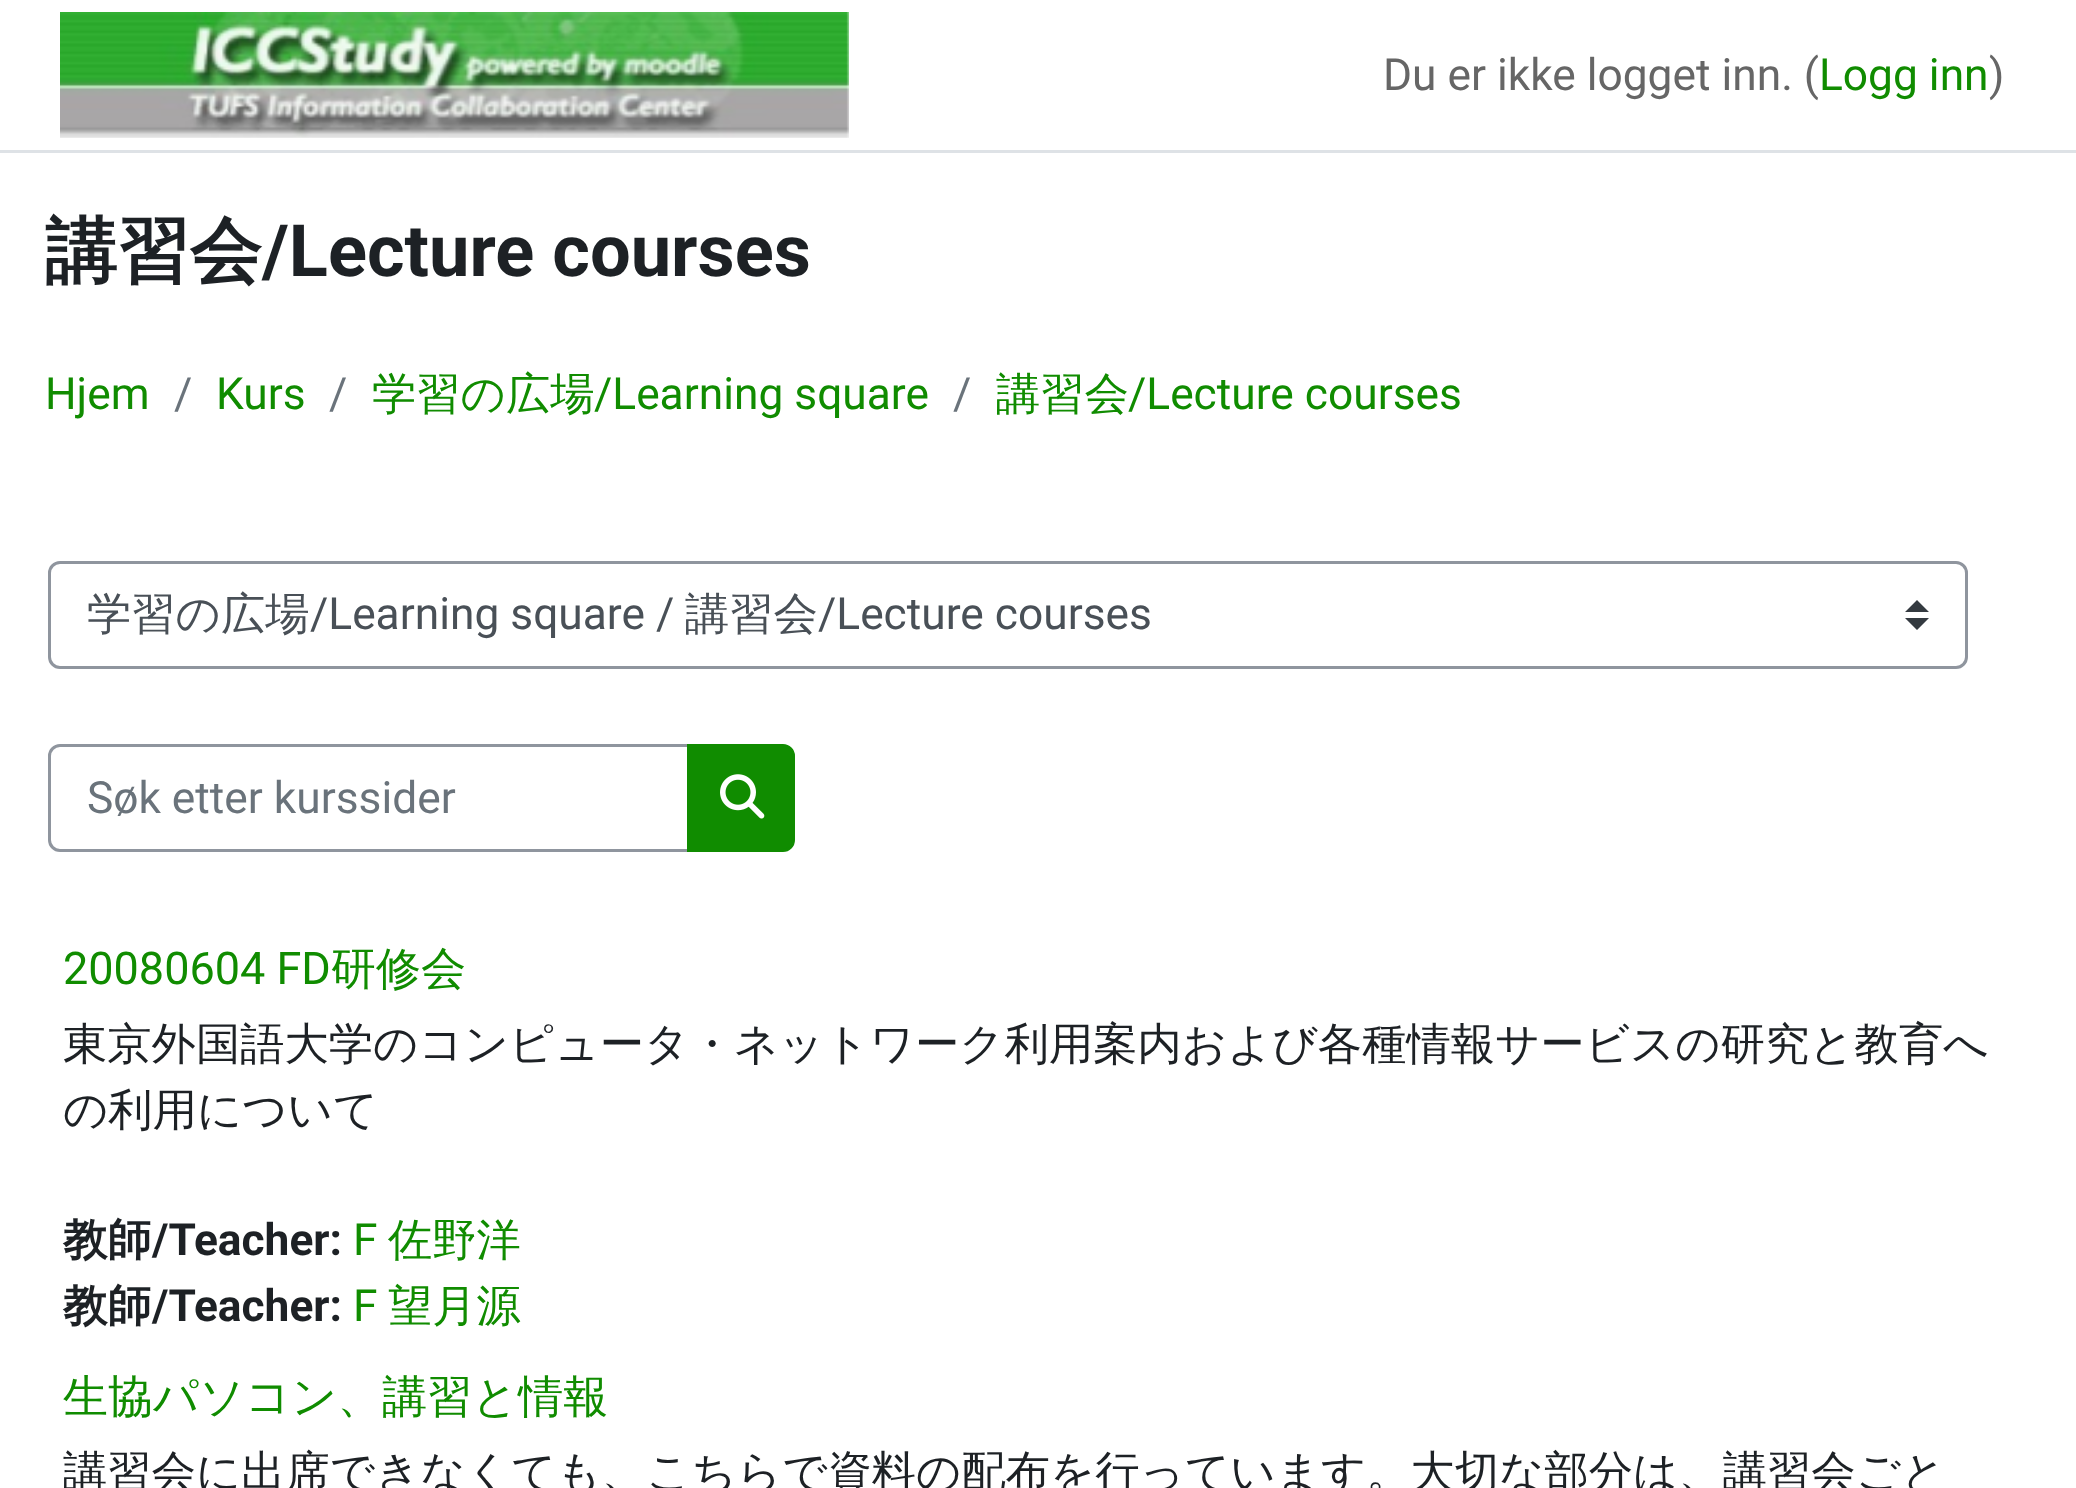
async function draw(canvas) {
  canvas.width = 2076;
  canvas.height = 1488;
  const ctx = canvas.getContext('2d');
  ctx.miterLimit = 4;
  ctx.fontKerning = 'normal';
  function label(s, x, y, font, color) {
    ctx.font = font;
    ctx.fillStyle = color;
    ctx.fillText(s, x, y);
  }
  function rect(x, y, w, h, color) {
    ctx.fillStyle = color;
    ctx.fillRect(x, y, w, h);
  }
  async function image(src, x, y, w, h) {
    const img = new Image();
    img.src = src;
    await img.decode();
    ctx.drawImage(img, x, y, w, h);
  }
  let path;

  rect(0, 0, 2076, 1488, '#fff');
  rect(0, 150, 2076, 3, '#dee2e6');
  await image('assets/img1.png', 60, 12, 789, 126);
  label('Du er ikke logget inn. (', 1383, 90, '44.3px Roboto', '#666');
  label('Logg inn', 1819, 90, '44.3px Roboto', '#108c00');
  label(')', 1989, 90, '44.3px Roboto', '#666');
  label('講習会', 45, 276, 'bold 72.25px WenQuanYi Zen Hei', '#1d2125');
  label('/Lecture courses', 262, 276, 'bold 72.25px Roboto', '#1d2125');
  label('Hjem', 45, 409, '44.3px Roboto', '#108c00');
  label('/', 174, 409, '44.3px Roboto', '#6a737b');
  label('Kurs', 216, 409, '44.3px Roboto', '#108c00');
  label('/', 329, 409, '44.3px Roboto', '#6a737b');
  label('学習の広場', 372, 409, '500 44.3px WenQuanYi Zen Hei', '#108c00');
  label('/Learning square', 594, 409, '44.3px Roboto', '#108c00');
  label('/', 953, 409, '44.3px Roboto', '#6a737b');
  label('講習会', 996, 409, '500 44.3px WenQuanYi Zen Hei', '#108c00');
  label('/Lecture courses', 1128, 409, '44.3px Roboto', '#108c00');
  ctx.fillStyle = '#343a40';
  path = new Path2D('M1917 600L1905 612H1929ZM1917 630L1905 618H1929Z');
  ctx.fill(path);
  ctx.beginPath();
  ctx.roundRect(49.5, 562.5, 1917, 105, 10.5);
  ctx.strokeStyle = '#8f959e';
  ctx.lineWidth = 3;
  ctx.stroke();
  label('学習の広場', 87, 629, '500 44.3px WenQuanYi Zen Hei', '#495057');
  label('/Learning square /', 310, 629, '44.3px Roboto', '#495057');
  label('講習会', 685, 629, '500 44.3px WenQuanYi Zen Hei', '#495057');
  label('/Lecture courses', 818, 629, '44.3px Roboto', '#495057');
  ctx.beginPath();
  ctx.roundRect(49.5, 745.5, 639, 105, [10.5, 0, 0, 10.5]);
  ctx.stroke();
  label('Søk etter kurssider', 87, 813, '44.3px Roboto', '#6a737b');
  ctx.fillStyle = '#108c00';
  ctx.beginPath();
  ctx.roundRect(688.5, 745.5, 105, 105, [0, 10.5, 10.5, 0]);
  ctx.fill();
  ctx.strokeStyle = '#108c00';
  ctx.stroke();
  await image('assets/img2.png', 720, 774, 45, 45);
  label('20080604 FD', 63, 984, '45px Roboto', '#108c00');
  label('研修会', 331, 984, '500 45px WenQuanYi Zen Hei', '#108c00');
  label('東京外国語大学のコンピュータ・ネットワーク利用案内および各種情報サービスの研究と教育へ', 63, 1059, '500 44.3px WenQuanYi Zen Hei', '#1d2125');
  label('の利用について', 63, 1125, '500 44.3px WenQuanYi Zen Hei', '#1d2125');
  label('教師', 63, 1255, 'bold 44.3px WenQuanYi Zen Hei', '#1d2125');
  label('/Teacher:', 152, 1255, 'bold 44.3px Roboto', '#1d2125');
  label('F', 353, 1255, '44.3px Roboto', '#108c00');
  label('佐野洋', 388, 1255, '500 44.3px WenQuanYi Zen Hei', '#108c00');
  label('教師', 63, 1321, 'bold 44.3px WenQuanYi Zen Hei', '#1d2125');
  label('/Teacher:', 152, 1321, 'bold 44.3px Roboto', '#1d2125');
  label('F', 353, 1321, '44.3px Roboto', '#108c00');
  label('望月源', 388, 1321, '500 44.3px WenQuanYi Zen Hei', '#108c00');
  label('生協パソコン、講習と情報', 63, 1412, '500 45px WenQuanYi Zen Hei', '#108c00');
  label('講習会に出席できなくても、こちらで資料の配布を行っています。大切な部分は、講習会ごと', 63, 1487, '500 44.3px WenQuanYi Zen Hei', '#1d2125');
}

draw(document.querySelector('canvas'));
